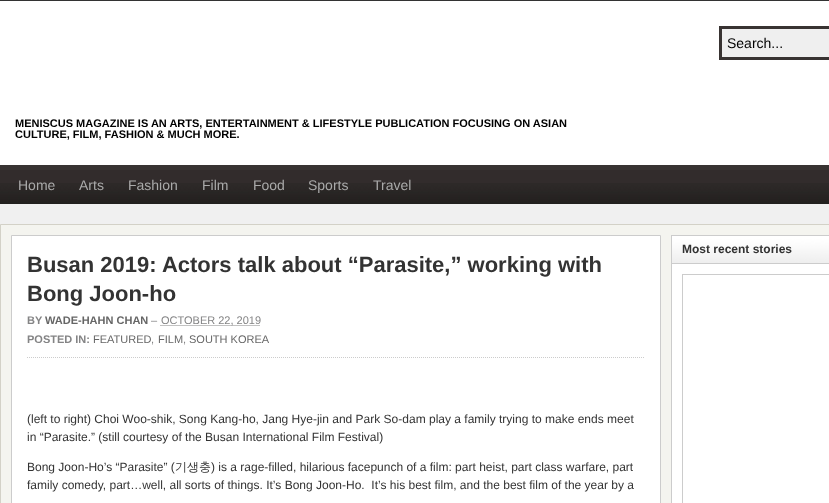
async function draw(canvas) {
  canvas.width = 829;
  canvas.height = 503;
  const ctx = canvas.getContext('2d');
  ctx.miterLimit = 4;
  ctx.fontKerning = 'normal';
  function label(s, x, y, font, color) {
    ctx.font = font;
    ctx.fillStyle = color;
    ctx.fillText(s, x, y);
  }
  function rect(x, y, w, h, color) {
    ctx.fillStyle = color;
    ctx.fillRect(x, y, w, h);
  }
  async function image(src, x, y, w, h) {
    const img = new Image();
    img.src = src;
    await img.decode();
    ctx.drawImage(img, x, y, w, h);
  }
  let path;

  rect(0, 0, 829, 503, '#f0f0f0');
  rect(0, 0, 829, 1, '#333');
  rect(0, 1, 829, 164, '#fff');
  rect(0, 165, 829, 5, '#383332');
  ctx.fillStyle = '#efefef';
  ctx.beginPath();
  ctx.rect(720.5, 27.5, 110, 31);
  ctx.fill();
  ctx.strokeStyle = '#383332';
  ctx.lineWidth = 3;
  ctx.stroke();
  label('Search...', 727, 48, '14px Liberation Sans', '#000');
  label('MENISCUS MAGAZINE IS AN ARTS, ENTERTAINMENT & LIFESTYLE PUBLICATION FOCUSING ON ASIAN', 15, 127, 'bold 11px Liberation Sans', '#000');
  label('CULTURE, FILM, FASHION & MUCH MORE.', 15, 138, 'bold 11px Liberation Sans', '#000');
  rect(0, 170, 829, 13, '#322c2c');
  await image('assets/img1.png', 0, 183, 829, 21);
  label('Home', 18, 190, '14px Liberation Sans', '#aaa');
  label('Arts', 79, 190, '14px Liberation Sans', '#aaa');
  label('Fashion', 128, 190, '14px Liberation Sans', '#aaa');
  label('Film', 202, 190, '14px Liberation Sans', '#aaa');
  label('Food', 253, 190, '14px Liberation Sans', '#aaa');
  label('Sports', 308, 190, '14px Liberation Sans', '#aaa');
  label('Travel', 373, 190, '14px Liberation Sans', '#aaa');
  ctx.fillStyle = '#f4f4ef';
  ctx.beginPath();
  ctx.rect(0.5, 224.5, 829, 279);
  ctx.fill();
  ctx.strokeStyle = '#d3d1c7';
  ctx.lineWidth = 1;
  ctx.stroke();
  rect(672, 264, 157, 239, '#fff');
  ctx.strokeStyle = '#ccc';
  ctx.strokeRect(671.5, 235.5, 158, 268);
  await image('assets/img2.png', 672, 236, 157, 27);
  rect(672, 263, 157, 1, '#ccc');
  label('Most recent stories', 682, 253, 'bold 12px Liberation Sans', '#333');
  ctx.strokeRect(682.5, 274.5, 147, 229);
  ctx.fillStyle = '#fff';
  ctx.beginPath();
  ctx.rect(11.5, 235.5, 649, 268);
  ctx.fill();
  ctx.stroke();
  label('Busan 2019: Actors talk about “Parasite,” working with', 27, 272, 'bold 22px Liberation Sans', '#333');
  label('Bong Joon-ho', 27, 301, 'bold 22px Liberation Sans', '#333');
  path = new Path2D('M27 357.5H645');
  ctx.setLineDash([1, 1]);
  ctx.stroke(path);
  label('BY', 27, 324, 'bold 11px Liberation Sans', '#848485');
  label('WADE-HAHN CHAN', 45, 324, 'bold 11px Liberation Sans', '#666');
  label('–', 151, 324, '11px Liberation Sans', '#848485');
  path = new Path2D('M160.5 325.5H260.5');
  ctx.strokeStyle = '#848485';
  ctx.stroke(path);
  label('OCTOBER 22, 2019', 161, 324, '11px Liberation Sans', '#848485');
  label('POSTED IN:', 27, 343, 'bold 11px Liberation Sans', '#848485');
  label('FEATURED', 93, 343, '11px Liberation Sans', '#666');
  label(',', 151, 343, '11px Liberation Sans', '#848485');
  label('FILM', 158, 343, '11px Liberation Sans', '#666');
  label(',', 183, 343, '11px Liberation Sans', '#848485');
  label('SOUTH KOREA', 189, 343, '11px Liberation Sans', '#666');
  label('(left to right) Choi Woo-shik, Song Kang-ho, Jang Hye-jin and Park So-dam play a family trying to make ends meet', 27, 423, '12px Liberation Sans', '#333');
  label('in “Parasite.” (still courtesy of the Busan International Film Festival)', 27, 441, '12px Liberation Sans', '#333');
  label('Bong Joon-Ho’s “Parasite” (', 27, 471, '12px Liberation Sans', '#333');
  label('기생충', 175, 471, '500 12px WenQuanYi Zen Hei', '#333');
  label(') is a rage-filled, hilarious facepunch of a film: part heist, part class warfare, part', 211, 471, '12px Liberation Sans', '#333');
  label('family comedy, part…well, all sorts of things. It’s Bong Joon-Ho.  It’s his best film, and the best film of the year by a', 27, 489, '12px Liberation Sans', '#333');
}

draw(document.querySelector('canvas'));
